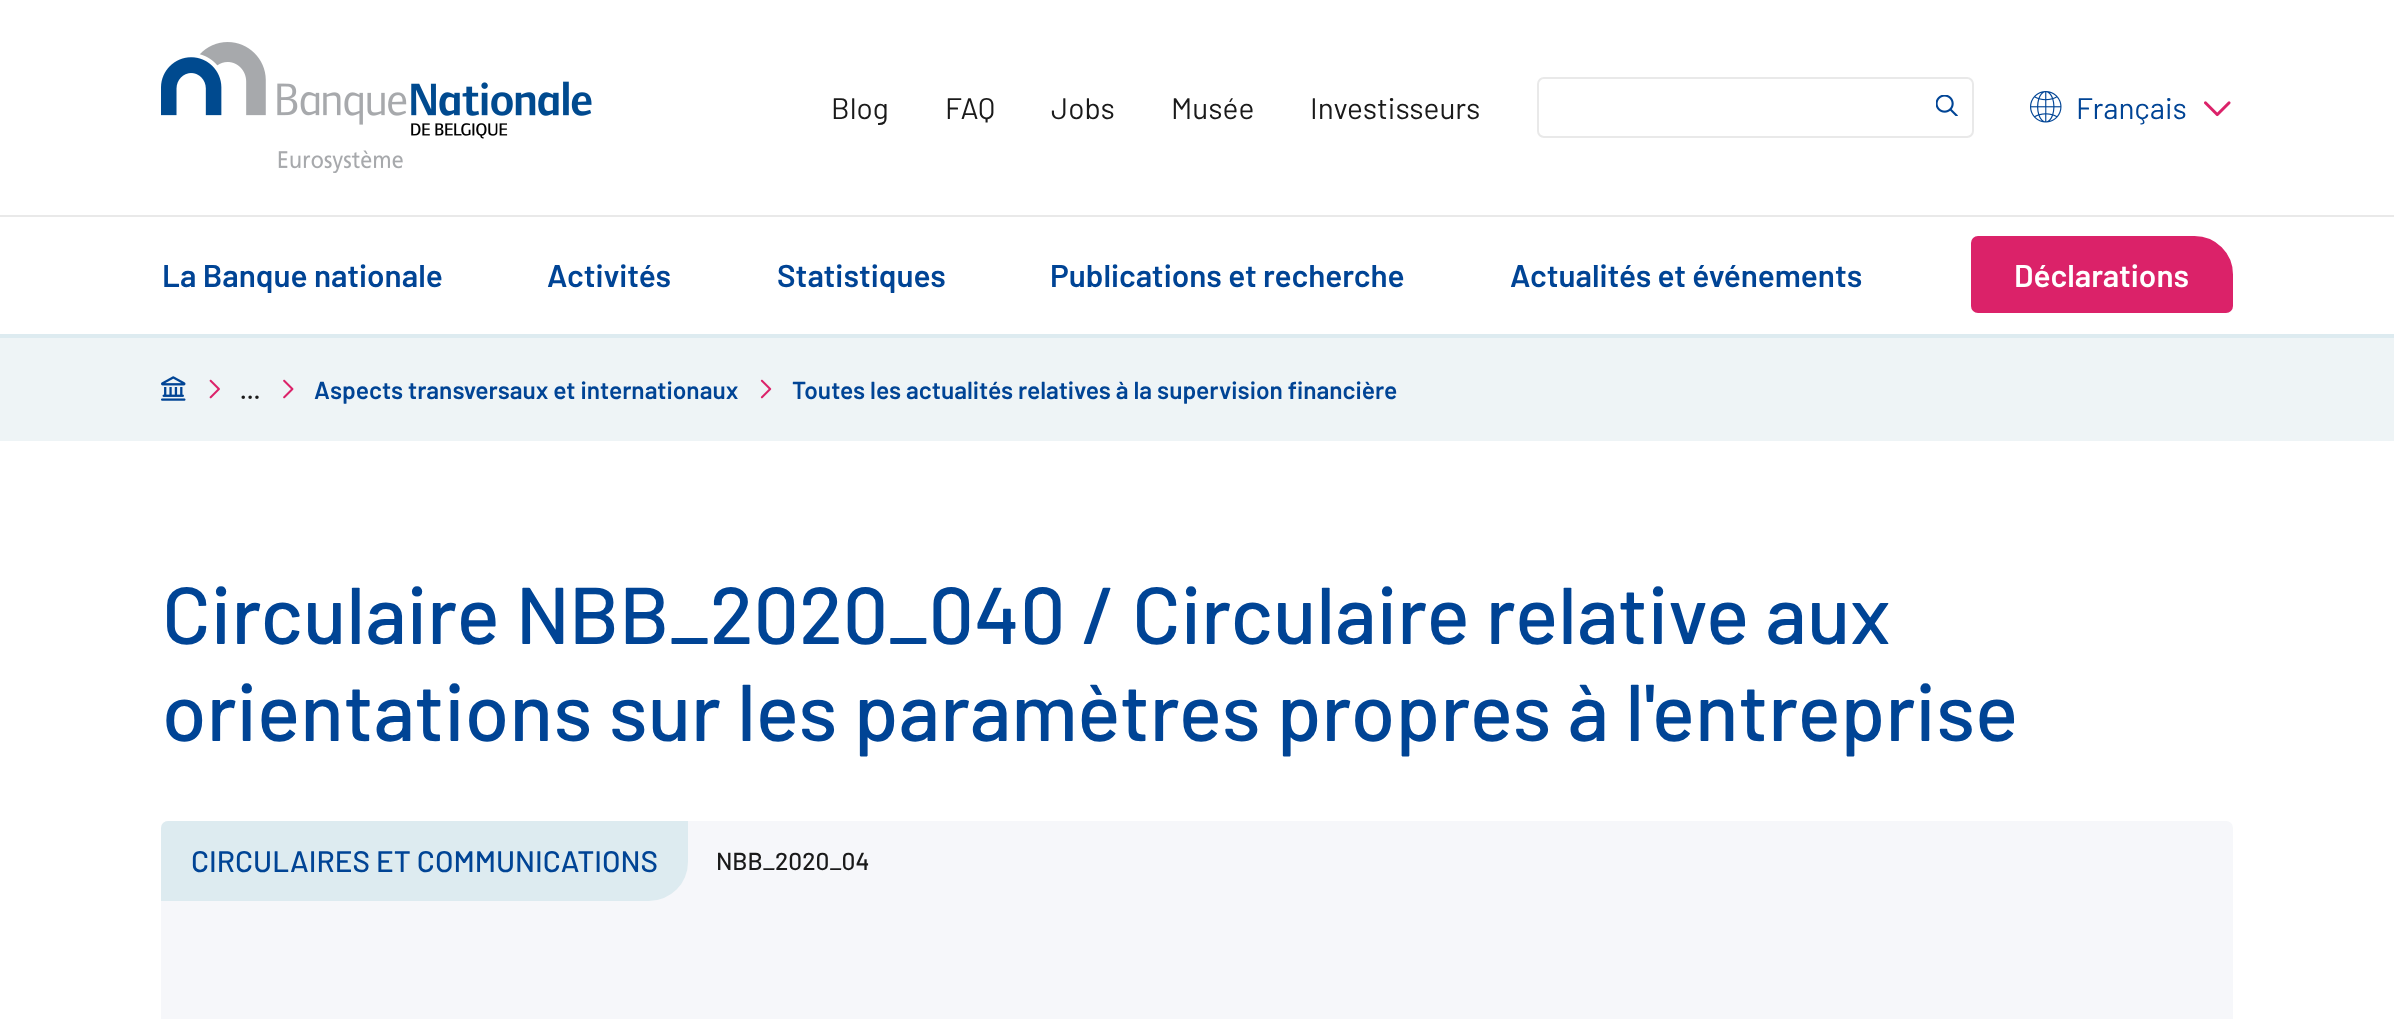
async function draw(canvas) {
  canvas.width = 2394;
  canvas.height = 1019;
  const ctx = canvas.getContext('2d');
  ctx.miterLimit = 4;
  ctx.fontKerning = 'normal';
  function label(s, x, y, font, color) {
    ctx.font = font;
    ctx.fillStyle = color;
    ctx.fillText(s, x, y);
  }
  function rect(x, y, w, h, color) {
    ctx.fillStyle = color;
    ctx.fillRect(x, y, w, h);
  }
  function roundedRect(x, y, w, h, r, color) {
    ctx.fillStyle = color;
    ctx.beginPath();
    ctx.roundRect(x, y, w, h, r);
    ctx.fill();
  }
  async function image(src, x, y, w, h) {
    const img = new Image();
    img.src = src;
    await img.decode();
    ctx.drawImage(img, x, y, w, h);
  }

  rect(0, 0, 2394, 1019, '#fff');
  await image('assets/img1.png', 161, 42, 431, 131);
  label('Blog', 831, 119, '29.75px Barlow', '#1a1a1a');
  label('FAQ', 945, 119, '29.75px Barlow', '#1a1a1a');
  label('Jobs', 1051, 119, '29.75px Barlow', '#1a1a1a');
  label('Musée', 1171, 119, '29.75px Barlow', '#1a1a1a');
  label('Investisseurs', 1310, 119, '29.75px Barlow', '#1a1a1a');
  ctx.beginPath();
  ctx.roundRect(1538, 78, 435, 59, 6);
  ctx.strokeStyle = '#e9e9e9';
  ctx.lineWidth = 2;
  ctx.stroke();
  await image('assets/img2.png', 1936, 95, 22, 21);
  await image('assets/img3.png', 2030, 91, 32, 32);
  label('Français', 2076, 119, '29.75px Barlow', '#004495');
  await image('assets/img4.png', 2204, 101, 27, 16);
  rect(0, 215, 2394, 2, '#e9e9e9');
  rect(0, 334, 2394, 4, '#ddebf0');
  label('La Banque nationale', 162, 287, '600 31.5px Barlow', '#004495');
  label('Activités', 547, 287, '600 31.5px Barlow', '#004495');
  label('Statistiques', 777, 287, '600 31.5px Barlow', '#004495');
  label('Publications et recherche', 1050, 287, '600 31.5px Barlow', '#004495');
  label('Actualités et événements', 1510, 287, '600 31.5px Barlow', '#004495');
  ctx.fillStyle = '#db2269';
  ctx.beginPath();
  ctx.roundRect(1972, 237, 260, 75, [6, 37.5, 6, 6]);
  ctx.fill();
  ctx.strokeStyle = '#db2269';
  ctx.stroke();
  label('Déclarations', 2014, 287, '600 31.5px Barlow', '#fff');
  rect(0, 338, 2394, 103, '#eef4f6');
  await image('assets/img5.png', 161, 376, 25, 25);
  await image('assets/img6.png', 209, 379, 11, 20);
  label('…', 240, 399, '600 24.5px Barlow', '#1a1a1a');
  await image('assets/img7.png', 283, 379, 11, 20);
  label('Aspects transversaux et internationaux', 314, 399, '600 24.5px Barlow', '#004495');
  await image('assets/img8.png', 760, 379, 12, 20);
  label('Toutes les actualités relatives à la supervision financière', 792, 399, '600 24.5px Barlow', '#004495');
  label('Circulaire NBB_2020_040 / Circulaire relative aux', 162, 644, '500 80.5px Barlow', '#004495');
  label('orientations sur les paramètres propres à l\'entreprise', 162, 741, '500 80.5px Barlow', '#004495');
  roundedRect(161, 821, 2072, 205, 7, '#f6f7fa');
  ctx.fillStyle = '#ddebf0';
  ctx.beginPath();
  ctx.roundRect(161, 821, 527, 80, [7, 0, 39, 0]);
  ctx.fill();
  label('CIRCULAIRES ET COMMUNICATIONS', 191, 872, '500 29.75px Barlow', '#004495');
  label('NBB_2020_04', 716, 870, '500 24.5px Barlow', '#1a1a1a');
}

draw(document.querySelector('canvas'));
